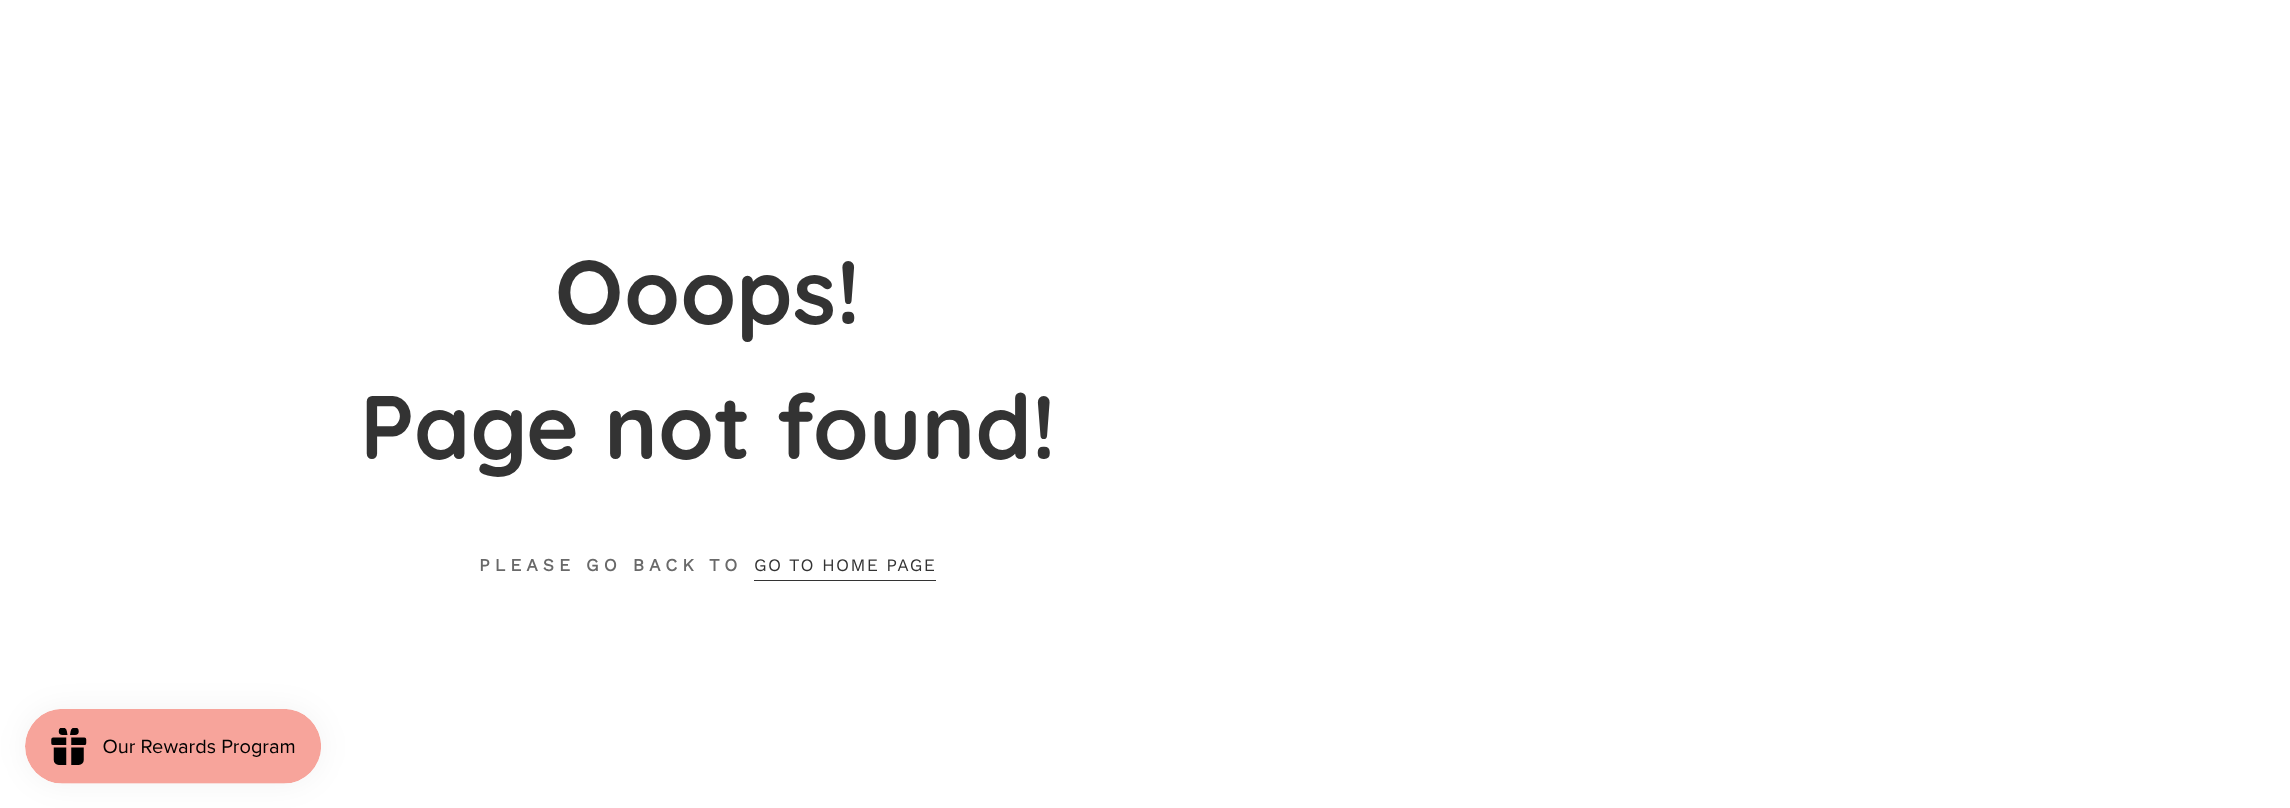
async function draw(canvas) {
  canvas.width = 2290;
  canvas.height = 808;
  const ctx = canvas.getContext('2d');
  ctx.miterLimit = 4;
  ctx.fontKerning = 'normal';
  function label(s, x, y, font, color) {
    ctx.font = font;
    ctx.fillStyle = color;
    ctx.fillText(s, x, y);
  }
  function rect(x, y, w, h, color) {
    ctx.fillStyle = color;
    ctx.fillRect(x, y, w, h);
  }
  async function image(src, x, y, w, h) {
    const img = new Image();
    img.src = src;
    await img.decode();
    ctx.drawImage(img, x, y, w, h);
  }

  rect(0, 0, 2290, 808, '#fff');
  label('Ooops!', 555, 324, 'bold 90px Quicksand', '#333');
  label('Page not found!', 360, 459, 'bold 90px Quicksand', '#333');
  ctx.letterSpacing = '5px';
  label('PLEASE GO BACK TO', 479, 571, 'bold 17.5px Work Sans', '#696969');
  rect(754, 580, 182, 1, '#333');
  ctx.letterSpacing = '1.25px';
  label('GO TO HOME PAGE', 754, 571, '17.5px Work Sans', '#333');
  ctx.fillStyle = '#0000000d';
  ctx.filter = 'blur(15.5px)';
  ctx.beginPath();
  ctx.roundRect(25, 709, 296, 75, 37.5);
  ctx.fill();
  ctx.filter = 'none';
  await image('assets/img1.png', 25, 709, 296, 75);
}

draw(document.querySelector('canvas'));
